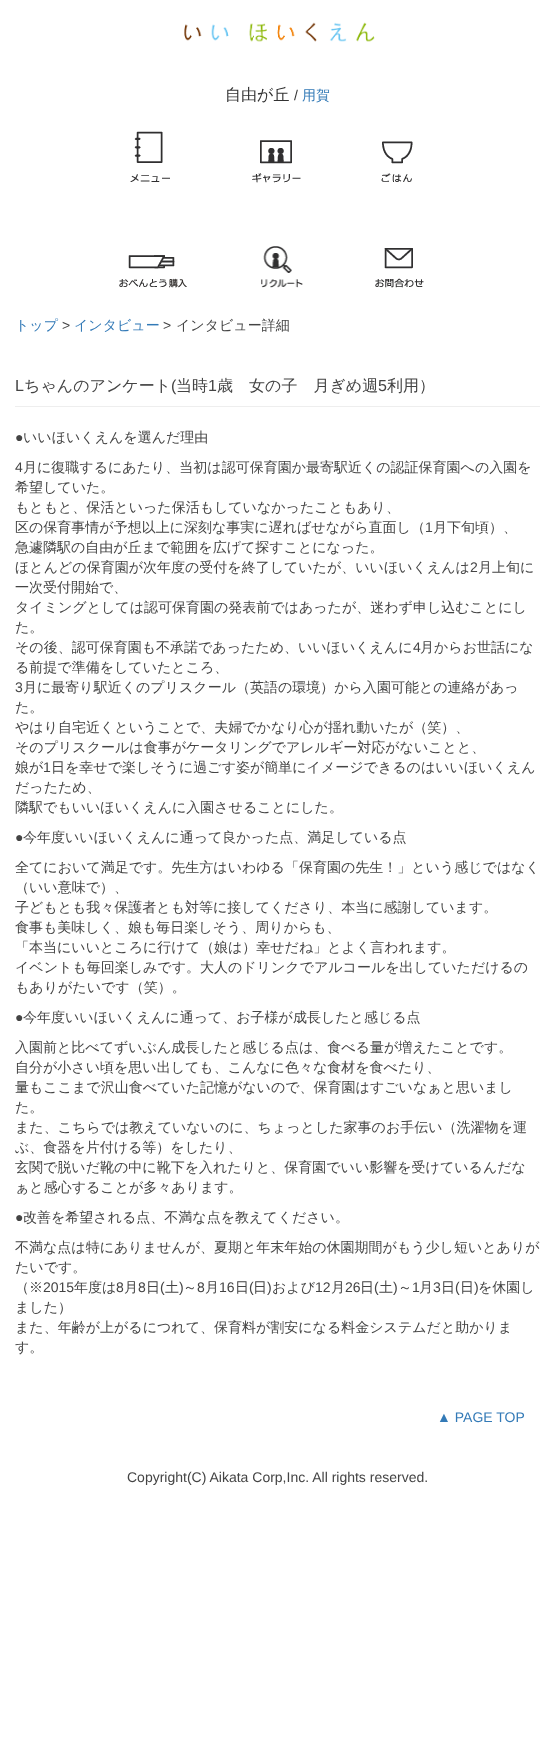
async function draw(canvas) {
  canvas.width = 555;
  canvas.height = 1764;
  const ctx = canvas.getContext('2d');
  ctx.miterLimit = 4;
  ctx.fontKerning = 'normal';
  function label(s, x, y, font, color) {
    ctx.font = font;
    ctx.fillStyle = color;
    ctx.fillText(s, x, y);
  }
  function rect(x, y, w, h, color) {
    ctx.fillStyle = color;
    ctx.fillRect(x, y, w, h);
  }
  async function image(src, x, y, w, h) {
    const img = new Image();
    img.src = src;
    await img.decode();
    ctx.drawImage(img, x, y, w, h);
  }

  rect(0, 0, 555, 1764, '#fff');
  await image('assets/img1.png', 184, 22, 191, 20);
  label('自由が丘', 225, 100, '500 16px WenQuanYi Zen Hei', '#333');
  label('/', 294, 100, '14px Liberation Sans', '#333');
  label('用賀', 302, 100, '500 14px WenQuanYi Zen Hei', '#337ab7');
  await image('assets/img2.png', 130, 131, 40, 51);
  await image('assets/img3.png', 252, 140, 49, 43);
  await image('assets/img4.png', 381, 141, 32, 41);
  await image('assets/img5.png', 119, 255, 68, 33);
  await image('assets/img6.png', 261, 246, 42, 42);
  await image('assets/img7.png', 375, 248, 49, 40);
  label('トップ', 15, 330, '500 14px WenQuanYi Zen Hei', '#337ab7');
  label('>', 62, 330, '14px Liberation Sans', '#444');
  label('インタビュー', 74, 330, '500 14px WenQuanYi Zen Hei', '#337ab7');
  label('>', 163, 330, '14px Liberation Sans', '#444');
  label('インタビュー詳細', 176, 330, '500 14px WenQuanYi Zen Hei', '#444');
  rect(15, 406, 525, 1, '#eee');
  label('L', 15, 391, '16px Liberation Sans', '#444');
  label('ちゃんのアンケート', 24, 391, '500 16px WenQuanYi Zen Hei', '#444');
  label('(', 171, 391, '16px Liberation Sans', '#444');
  label('当時', 176, 391, '500 16px WenQuanYi Zen Hei', '#444');
  label('1', 208, 391, '16px Liberation Sans', '#444');
  label('歳　女の子　月ぎめ週', 217, 391, '500 16px WenQuanYi Zen Hei', '#444');
  label('5', 378, 391, '16px Liberation Sans', '#444');
  label('利用）', 387, 391, '500 16px WenQuanYi Zen Hei', '#444');
  label('●', 15, 442, '14px Liberation Sans', '#444');
  label('いいほいくえんを選んだ理由', 23, 442, '500 14px WenQuanYi Zen Hei', '#444');
  label('4', 15, 472, '14px Liberation Sans', '#444');
  label('月に復職するにあたり、当初は認可保育園か最寄駅近くの認証保育園への入園を', 23, 472, '500 14px WenQuanYi Zen Hei', '#444');
  label('希望していた。', 15, 492, '500 14px WenQuanYi Zen Hei', '#444');
  label('もともと、保活といった保活もしていなかったこともあり、', 15, 512, '500 14px WenQuanYi Zen Hei', '#444');
  label('区の保育事情が予想以上に深刻な事実に遅ればせながら直面し（', 15, 532, '500 14px WenQuanYi Zen Hei', '#444');
  label('1', 425, 532, '14px Liberation Sans', '#444');
  label('月下旬頃）、', 433, 532, '500 14px WenQuanYi Zen Hei', '#444');
  label('急遽隣駅の自由が丘まで範囲を広げて探すことになった。', 15, 552, '500 14px WenQuanYi Zen Hei', '#444');
  label('ほとんどの保育園が次年度の受付を終了していたが、いいほいくえんは', 15, 572, '500 14px WenQuanYi Zen Hei', '#444');
  label('2', 470, 572, '14px Liberation Sans', '#444');
  label('月上旬に', 478, 572, '500 14px WenQuanYi Zen Hei', '#444');
  label('一次受付開始で、', 15, 592, '500 14px WenQuanYi Zen Hei', '#444');
  label('タイミングとしては認可保育園の発表前ではあったが、迷わず申し込むことにし', 15, 612, '500 14px WenQuanYi Zen Hei', '#444');
  label('た。', 15, 632, '500 14px WenQuanYi Zen Hei', '#444');
  label('その後、認可保育園も不承諾であったため、いいほいくえんに', 15, 652, '500 14px WenQuanYi Zen Hei', '#444');
  label('4', 413, 652, '14px Liberation Sans', '#444');
  label('月からお世話にな', 420, 652, '500 14px WenQuanYi Zen Hei', '#444');
  label('る前提で準備をしていたところ、', 15, 672, '500 14px WenQuanYi Zen Hei', '#444');
  label('3', 15, 692, '14px Liberation Sans', '#444');
  label('月に最寄り駅近くのプリスクール（英語の環境）から入園可能との連絡があっ', 23, 692, '500 14px WenQuanYi Zen Hei', '#444');
  label('た。', 15, 712, '500 14px WenQuanYi Zen Hei', '#444');
  label('やはり自宅近くということで、夫婦でかなり心が揺れ動いたが（笑）、', 15, 732, '500 14px WenQuanYi Zen Hei', '#444');
  label('そのプリスクールは食事がケータリングでアレルギー対応がないことと、', 15, 752, '500 14px WenQuanYi Zen Hei', '#444');
  label('娘が', 15, 772, '500 14px WenQuanYi Zen Hei', '#444');
  label('1', 43, 772, '14px Liberation Sans', '#444');
  label('日を幸せで楽しそうに過ごす姿が簡単にイメージできるのはいいほいくえん', 51, 772, '500 14px WenQuanYi Zen Hei', '#444');
  label('だったため、', 15, 792, '500 14px WenQuanYi Zen Hei', '#444');
  label('隣駅でもいいほいくえんに入園させることにした。', 15, 812, '500 14px WenQuanYi Zen Hei', '#444');
  label('●', 15, 842, '14px Liberation Sans', '#444');
  label('今年度いいほいくえんに通って良かった点、満足している点', 23, 842, '500 14px WenQuanYi Zen Hei', '#444');
  label('全てにおいて満足です。先生方はいわゆる「保育園の先生！」という感じではなく', 15, 872, '500 14px WenQuanYi Zen Hei', '#444');
  label('（いい意味で）、', 15, 892, '500 14px WenQuanYi Zen Hei', '#444');
  label('子どもとも我々保護者とも対等に接してくださり、本当に感謝しています。', 15, 912, '500 14px WenQuanYi Zen Hei', '#444');
  label('食事も美味しく、娘も毎日楽しそう、周りからも、', 15, 932, '500 14px WenQuanYi Zen Hei', '#444');
  label('「本当にいいところに行けて（娘は）幸せだね」とよく言われます。', 15, 952, '500 14px WenQuanYi Zen Hei', '#444');
  label('イベントも毎回楽しみです。大人のドリンクでアルコールを出していただけるの', 15, 972, '500 14px WenQuanYi Zen Hei', '#444');
  label('もありがたいです（笑）。', 15, 992, '500 14px WenQuanYi Zen Hei', '#444');
  label('●', 15, 1022, '14px Liberation Sans', '#444');
  label('今年度いいほいくえんに通って、お子様が成長したと感じる点', 23, 1022, '500 14px WenQuanYi Zen Hei', '#444');
  label('入園前と比べてずいぶん成長したと感じる点は、食べる量が増えたことです。', 15, 1052, '500 14px WenQuanYi Zen Hei', '#444');
  label('自分が小さい頃を思い出しても、こんなに色々な食材を食べたり、', 15, 1072, '500 14px WenQuanYi Zen Hei', '#444');
  label('量もここまで沢山食べていた記憶がないので、保育園はすごいなぁと思いまし', 15, 1092, '500 14px WenQuanYi Zen Hei', '#444');
  label('た。', 15, 1112, '500 14px WenQuanYi Zen Hei', '#444');
  label('また、こちらでは教えていないのに、ちょっとした家事のお手伝い（洗濯物を運', 15, 1132, '500 14px WenQuanYi Zen Hei', '#444');
  label('ぶ、食器を片付ける等）をしたり、', 15, 1152, '500 14px WenQuanYi Zen Hei', '#444');
  label('玄関で脱いだ靴の中に靴下を入れたりと、保育園でいい影響を受けているんだな', 15, 1172, '500 14px WenQuanYi Zen Hei', '#444');
  label('ぁと感心することが多々あります。', 15, 1192, '500 14px WenQuanYi Zen Hei', '#444');
  label('●', 15, 1222, '14px Liberation Sans', '#444');
  label('改善を希望される点、不満な点を教えてください。', 23, 1222, '500 14px WenQuanYi Zen Hei', '#444');
  label('不満な点は特にありませんが、夏期と年末年始の休園期間がもう少し短いとありが', 15, 1252, '500 14px WenQuanYi Zen Hei', '#444');
  label('たいです。', 15, 1272, '500 14px WenQuanYi Zen Hei', '#444');
  label('（※', 15, 1292, '500 14px WenQuanYi Zen Hei', '#444');
  label('2015', 43, 1292, '14px Liberation Sans', '#444');
  label('年度は', 74, 1292, '500 14px WenQuanYi Zen Hei', '#444');
  label('8', 116, 1292, '14px Liberation Sans', '#444');
  label('月', 124, 1292, '500 14px WenQuanYi Zen Hei', '#444');
  label('8', 138, 1292, '14px Liberation Sans', '#444');
  label('日', 146, 1292, '500 14px WenQuanYi Zen Hei', '#444');
  label('(', 160, 1292, '14px Liberation Sans', '#444');
  label('土', 165, 1292, '500 14px WenQuanYi Zen Hei', '#444');
  label(')', 179, 1292, '14px Liberation Sans', '#444');
  label('～', 183, 1292, '500 14px WenQuanYi Zen Hei', '#444');
  label('8', 197, 1292, '14px Liberation Sans', '#444');
  label('月', 205, 1292, '500 14px WenQuanYi Zen Hei', '#444');
  label('16', 219, 1292, '14px Liberation Sans', '#444');
  label('日', 235, 1292, '500 14px WenQuanYi Zen Hei', '#444');
  label('(', 249, 1292, '14px Liberation Sans', '#444');
  label('日', 253, 1292, '500 14px WenQuanYi Zen Hei', '#444');
  label(')', 267, 1292, '14px Liberation Sans', '#444');
  label('および', 272, 1292, '500 14px WenQuanYi Zen Hei', '#444');
  label('12', 315, 1292, '14px Liberation Sans', '#444');
  label('月', 331, 1292, '500 14px WenQuanYi Zen Hei', '#444');
  label('26', 345, 1292, '14px Liberation Sans', '#444');
  label('日', 360, 1292, '500 14px WenQuanYi Zen Hei', '#444');
  label('(', 374, 1292, '14px Liberation Sans', '#444');
  label('土', 379, 1292, '500 14px WenQuanYi Zen Hei', '#444');
  label(')', 393, 1292, '14px Liberation Sans', '#444');
  label('～', 398, 1292, '500 14px WenQuanYi Zen Hei', '#444');
  label('1', 412, 1292, '14px Liberation Sans', '#444');
  label('月', 419, 1292, '500 14px WenQuanYi Zen Hei', '#444');
  label('3', 433, 1292, '14px Liberation Sans', '#444');
  label('日', 441, 1292, '500 14px WenQuanYi Zen Hei', '#444');
  label('(', 455, 1292, '14px Liberation Sans', '#444');
  label('日', 460, 1292, '500 14px WenQuanYi Zen Hei', '#444');
  label(')', 474, 1292, '14px Liberation Sans', '#444');
  label('を休園し', 478, 1292, '500 14px WenQuanYi Zen Hei', '#444');
  label('ました）', 15, 1312, '500 14px WenQuanYi Zen Hei', '#444');
  label('また、年齢が上がるにつれて、保育料が割安になる料金システムだと助かりま', 15, 1332, '500 14px WenQuanYi Zen Hei', '#444');
  label('す。', 15, 1352, '500 14px WenQuanYi Zen Hei', '#444');
  label('▲ PAGE TOP', 437, 1422, '14px Liberation Sans', '#337ab7');
  label('Copyright(C) Aikata Corp,Inc. All rights reserved.', 127, 1482, '14px Liberation Sans', '#444');
}

draw(document.querySelector('canvas'));
